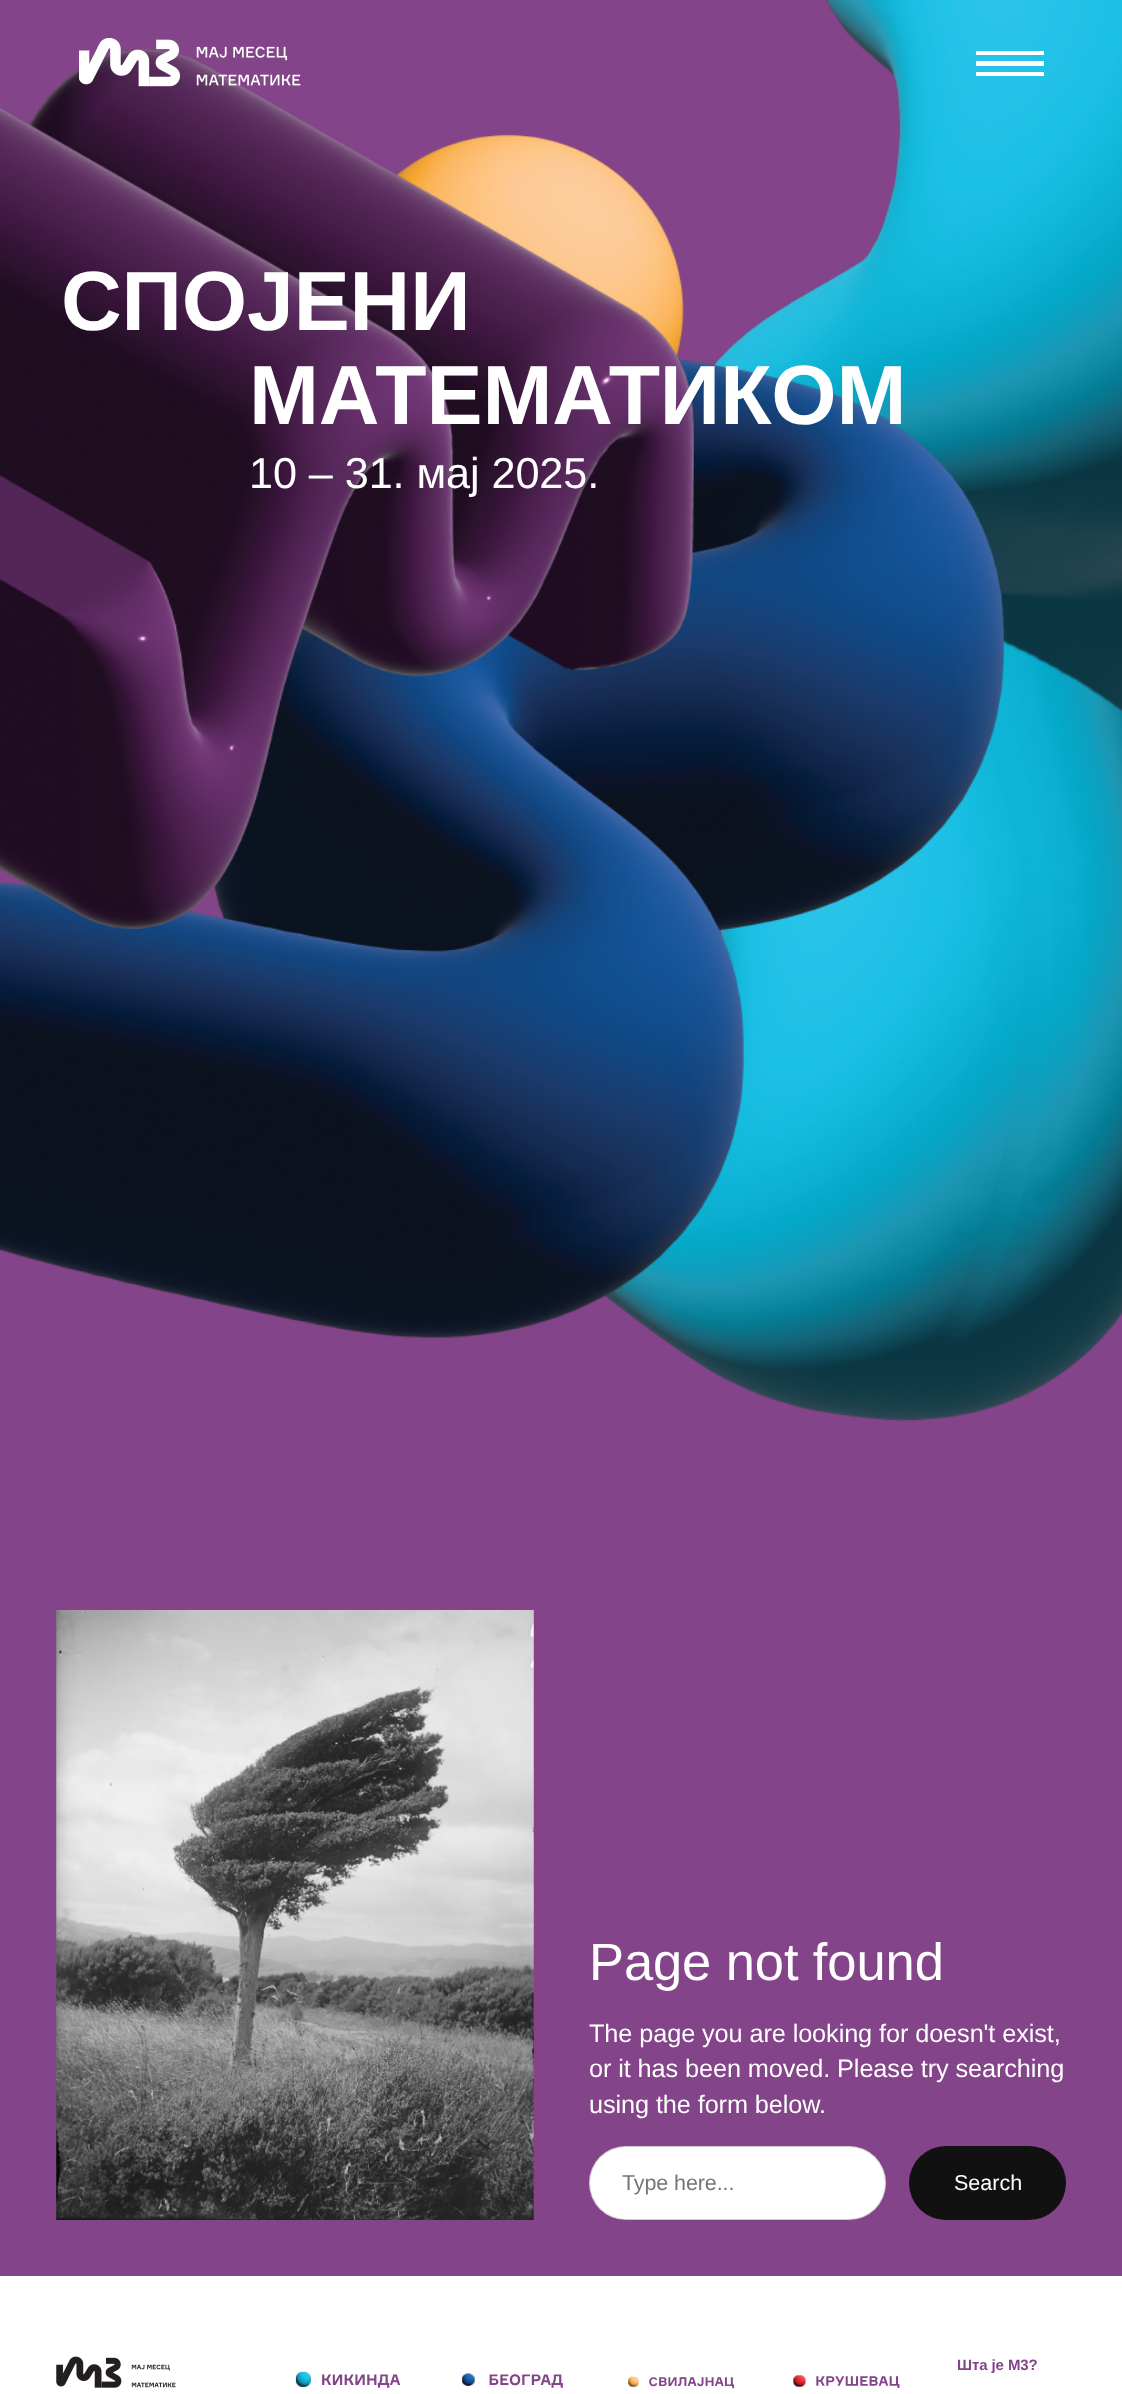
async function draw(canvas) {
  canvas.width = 1122;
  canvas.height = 2394;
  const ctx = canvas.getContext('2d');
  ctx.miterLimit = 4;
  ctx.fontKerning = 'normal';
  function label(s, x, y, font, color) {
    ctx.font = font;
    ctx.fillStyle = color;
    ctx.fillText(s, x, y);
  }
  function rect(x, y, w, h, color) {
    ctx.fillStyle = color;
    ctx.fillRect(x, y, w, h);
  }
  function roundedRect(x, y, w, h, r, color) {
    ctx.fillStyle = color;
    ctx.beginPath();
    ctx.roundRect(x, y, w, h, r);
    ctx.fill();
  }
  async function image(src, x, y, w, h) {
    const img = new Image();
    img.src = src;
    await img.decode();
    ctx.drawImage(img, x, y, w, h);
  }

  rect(0, 0, 1122, 2394, '#84448a');
  await image('assets/img1.png', 0, 0, 1122, 1422);
  await image('assets/img2.png', 79, 38, 222, 49);
  rect(976, 51, 68, 4, '#fff');
  rect(976, 61, 68, 5, '#fff');
  rect(976, 72, 68, 4, '#fff');
  ctx.letterSpacing = '-0.1px';
  label('СПОЈЕНИ', 61, 330, 'bold 84px Liberation Sans', '#fff');
  label('МАТЕМАТИКОМ', 249, 424, 'bold 84px Liberation Sans', '#fff');
  label('10 – 31. мај 2025.', 249, 488, '43.25px Liberation Sans', '#fff');
  await image('assets/img3.png', 56, 1610, 478, 610);
  label('Page not found', 589, 1980, '52.5px Liberation Sans', '#fff');
  label('The page you are looking for doesn\'t exist,', 589, 2042, '25.3px Liberation Sans', '#fff');
  label('or it has been moved. Please try searching', 589, 2077, '25.3px Liberation Sans', '#fff');
  label('using the form below.', 589, 2113, '25.3px Liberation Sans', '#fff');
  roundedRect(589, 2146, 297, 74, 37, '#fff');
  ctx.beginPath();
  ctx.roundRect(589.5, 2146.5, 296, 73, 36.5);
  ctx.strokeStyle = '#00000033';
  ctx.stroke();
  label('Type here...', 622, 2190, '21.5px Liberation Sans', '#757575');
  roundedRect(909, 2146, 157, 74, 37, '#111');
  ctx.letterSpacing = '0px';
  label('Search', 954, 2190, '21.5px Liberation Sans', '#fff');
  rect(0, 2276, 1122, 118, '#fff');
  await image('assets/img4.png', 56, 2356, 120, 32);
  ctx.letterSpacing = '-0.1px';
  label('Шта је М3?', 957, 2370, 'bold 15px Liberation Sans', '#84448a');
  await image('assets/img5.png', 295, 2371, 106, 17);
  await image('assets/img6.png', 462, 2373, 101, 15);
  await image('assets/img7.png', 628, 2375, 107, 14);
  await image('assets/img8.png', 793, 2375, 107, 13);
}

draw(document.querySelector('canvas'));
